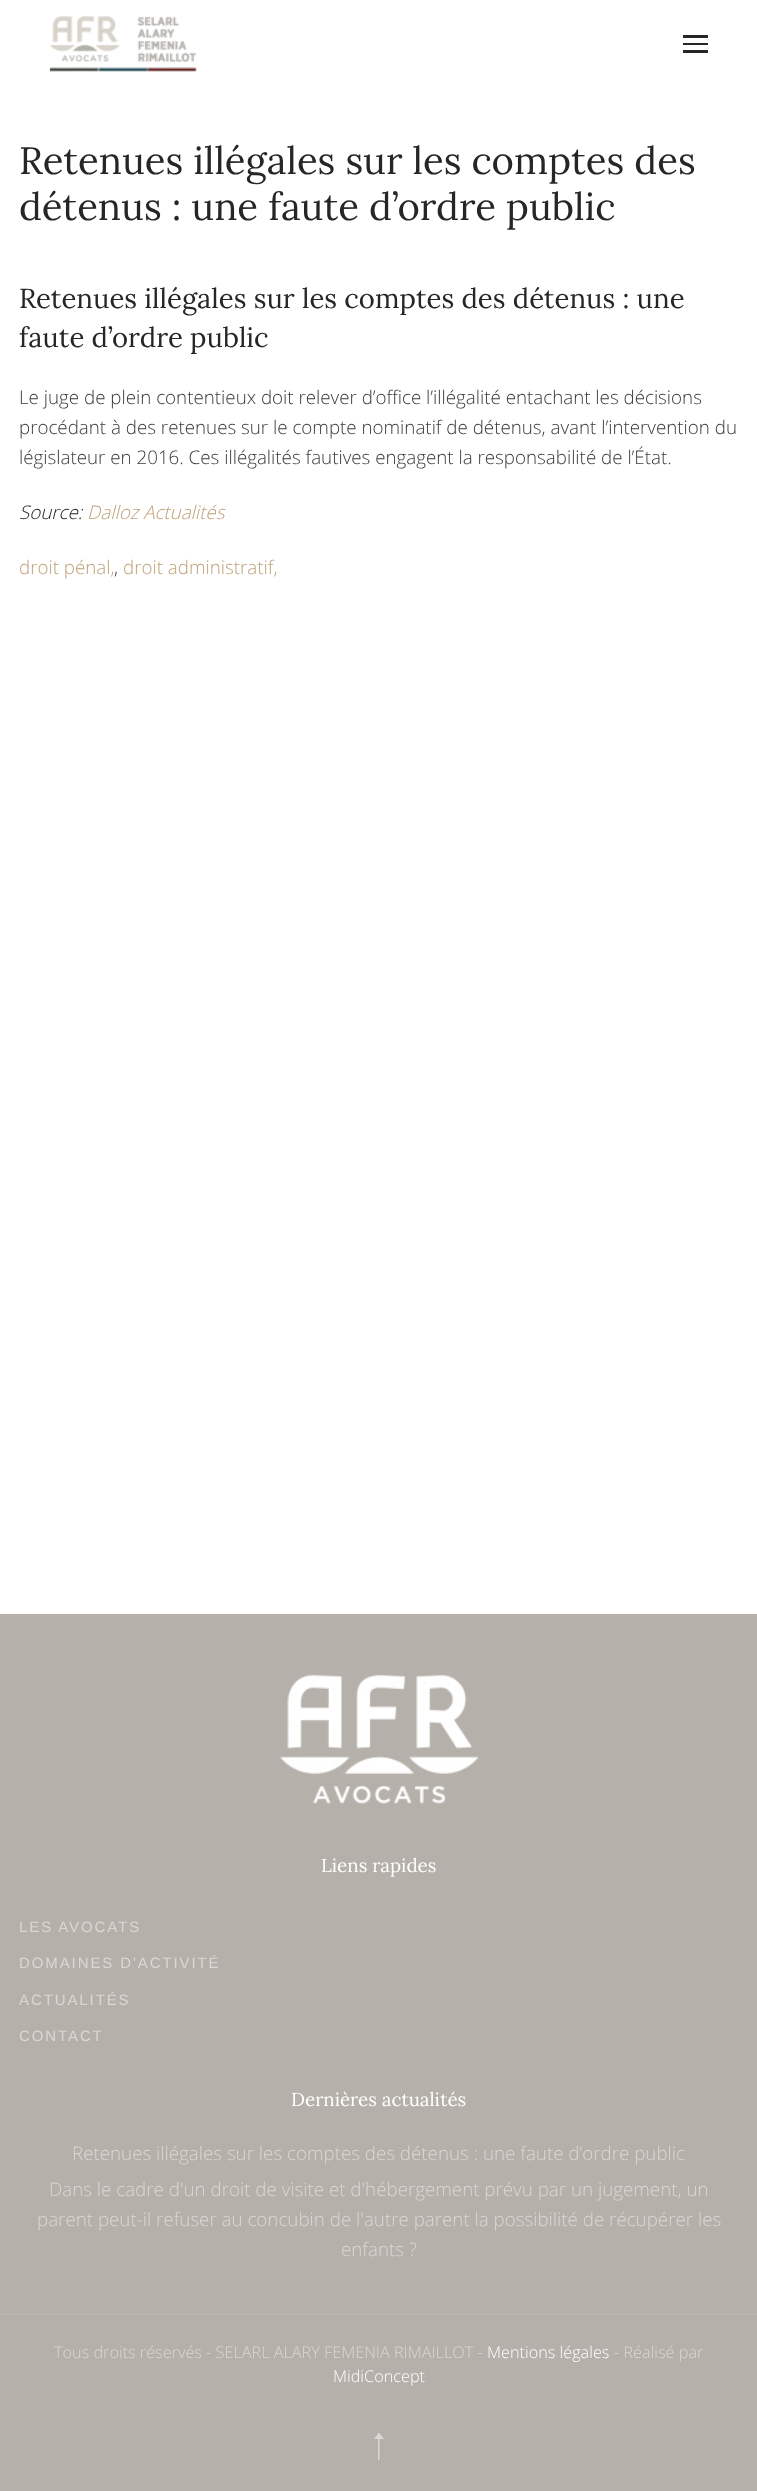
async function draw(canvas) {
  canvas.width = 757;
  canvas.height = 2491;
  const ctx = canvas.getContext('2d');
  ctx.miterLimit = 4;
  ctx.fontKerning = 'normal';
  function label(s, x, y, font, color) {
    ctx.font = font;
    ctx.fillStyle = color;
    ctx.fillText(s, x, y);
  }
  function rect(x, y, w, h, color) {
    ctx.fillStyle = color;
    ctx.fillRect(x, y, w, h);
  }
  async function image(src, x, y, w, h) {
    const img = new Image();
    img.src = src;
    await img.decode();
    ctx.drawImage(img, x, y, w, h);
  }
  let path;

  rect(0, 0, 757, 2491, '#fff');
  await image('assets/img1.png', 50, 16, 147, 56);
  rect(683, 35, 25, 3, '#262626');
  rect(683, 43, 25, 2, '#262626');
  rect(683, 50, 25, 3, '#262626');
  label('Retenues illégales sur les comptes des', 19, 174, '38.25px Lora', '#262626');
  label('détenus : une faute d’ordre public', 19, 220, '38.25px Lora', '#262626');
  label('Retenues illégales sur les comptes des détenus : une', 19, 308, '27.5px Lora', '#262626');
  label('faute d’ordre public', 19, 347, '27.5px Lora', '#262626');
  label('Le juge de plein contentieux doit relever d’office l’illégalité entachant les décisions', 19, 404, '300 18.75px Open Sans', '#3c3c3c');
  label('procédant à des retenues sur le compte nominatif de détenus, avant l’intervention du', 19, 434, '300 18.75px Open Sans', '#3c3c3c');
  label('législateur en 2016. Ces illégalités fautives engagent la responsabilité de l’État.', 19, 464, '300 18.75px Open Sans', '#3c3c3c');
  label('Source:', 19, 519, 'italic 300 18.75px Open Sans', '#262626');
  label('Dalloz Actualités', 87, 519, 'italic 300 18.75px Open Sans', '#bfa279');
  label('droit pénal,', 19, 574, '300 18.75px Open Sans', '#bfa279');
  label(',', 114, 574, '300 18.75px Open Sans', '#3c3c3c');
  label('droit administratif,', 123, 574, '300 18.75px Open Sans', '#bfa279');
  rect(0, 1614, 757, 700, '#b5b0a9');
  await image('assets/img2.png', 280, 1674, 199, 130);
  label('Liens rapides', 321, 1872, '18.75px Lora', '#fff');
  ctx.letterSpacing = '1.9px';
  label('LES AVOCATS', 19, 1932, '15px Liberation Sans', '#dad8d4');
  label('DOMAINES D\'ACTIVITÉ', 19, 1968, '15px Liberation Sans', '#dad8d4');
  label('ACTUALITÉS', 19, 2005, '15px Liberation Sans', '#dad8d4');
  label('CONTACT', 19, 2041, '15px Liberation Sans', '#dad8d4');
  ctx.letterSpacing = '0px';
  label('Dernières actualités', 291, 2106, '18.75px Lora', '#fff');
  label('Retenues illégales sur les comptes des détenus : une faute d’ordre public', 72, 2160, '300 18.75px Open Sans', '#dad8d4');
  label('Dans le cadre d\'un droit de visite et d\'hébergement prévu par un jugement, un', 49, 2196, '300 18.75px Open Sans', '#dad8d4');
  label('parent peut-il refuser au concubin de l\'autre parent la possibilité de récupérer les', 37, 2226, '300 18.75px Open Sans', '#dad8d4');
  label('enfants ?', 341, 2256, '300 18.75px Open Sans', '#dad8d4');
  rect(0, 2314, 757, 1, '#bcb8b2');
  rect(0, 2315, 757, 176, '#b5b0a9');
  label('Tous droits réservés - SELARL ALARY FEMENIA RIMAILLOT -', 54, 2358, '300 16.25px Open Sans', '#dad8d4');
  label('Mentions légales', 487, 2358, '300 16.25px Open Sans', '#fff');
  label('- Réalisé par', 614, 2358, '300 16.25px Open Sans', '#dad8d4');
  label('MidiConcept', 333, 2382, '300 16.25px Open Sans', '#fff');
  ctx.fillStyle = '#dad8d4';
  path = new Path2D('M384 2439L379 2432.5L374 2439H378V2460H379.5V2439Z');
  ctx.fill(path);
}

draw(document.querySelector('canvas'));
